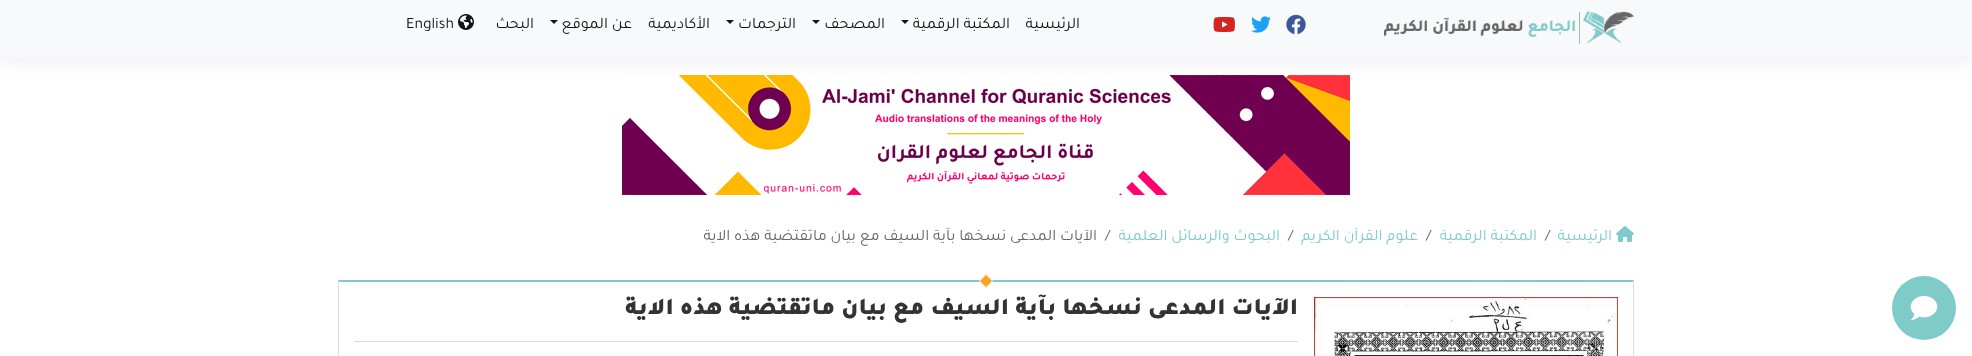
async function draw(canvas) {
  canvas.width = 1972;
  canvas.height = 356;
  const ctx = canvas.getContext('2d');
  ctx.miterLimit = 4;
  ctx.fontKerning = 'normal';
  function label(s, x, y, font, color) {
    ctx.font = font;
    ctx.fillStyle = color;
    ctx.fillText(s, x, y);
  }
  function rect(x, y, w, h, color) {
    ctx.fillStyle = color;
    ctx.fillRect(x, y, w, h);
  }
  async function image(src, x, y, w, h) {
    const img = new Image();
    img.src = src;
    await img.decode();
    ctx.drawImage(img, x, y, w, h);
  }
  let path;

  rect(0, 0, 1972, 356, '#fff');
  ctx.fillStyle = '#00000017';
  ctx.filter = 'blur(10px)';
  ctx.beginPath();
  ctx.rect(0, 0, 1972, 59);
  ctx.fill();
  ctx.filter = 'none';
  rect(0, 0, 1972, 55, '#f8f9fa');
  rect(0, 55, 1972, 4, '#f6f7fa');
  await image('assets/img1.png', 1384, 11, 250, 33);
  await image('assets/img2.png', 1286, 14, 20, 20);
  await image('assets/img3.png', 1251, 16, 20, 17);
  await image('assets/img4.png', 1213, 17, 22, 15);
  ctx.direction = 'rtl';
  label('الرئيسية', 1080, 28, '16px Tajawal', '#141414');
  label('المكتبة الرقمية', 1010, 28, '16px Tajawal', '#141414');
  path = new Path2D('M901 20H909L905 24Z');
  ctx.fill(path);
  label('المصحف', 885, 28, '16px Tajawal', '#141414');
  path = new Path2D('M812 20H820L816 24Z');
  ctx.fill(path);
  label('الترجمات', 796, 28, '16px Tajawal', '#141414');
  path = new Path2D('M726 20H734L730 24Z');
  ctx.fill(path);
  label('الأكاديمية', 710, 28, '16px Tajawal', '#141414');
  label('عن الموقع', 632, 28, '16px Tajawal', '#141414');
  path = new Path2D('M550 20H558L554 24Z');
  ctx.fill(path);
  label('البحث', 534, 28, '16px Tajawal', '#141414');
  await image('assets/img5.png', 458, 14, 16, 16);
  ctx.direction = 'ltr';
  label('English', 406, 28, '16px Tajawal', '#141414');
  await image('assets/img6.png', 622, 75, 728, 120);
  await image('assets/img7.png', 1616, 226, 18, 16);
  ctx.direction = 'rtl';
  label('الرئيسية', 1612, 240, '16px Tajawal', '#7fcbc9');
  ctx.direction = 'ltr';
  label('/', 1545, 240, '16px Tajawal', '#595c5f');
  ctx.direction = 'rtl';
  label('المكتبة الرقمية', 1537, 240, '16px Tajawal', '#7fcbc9');
  ctx.direction = 'ltr';
  label('/', 1426, 240, '16px Tajawal', '#595c5f');
  ctx.direction = 'rtl';
  label('علوم القرآن الكريم', 1418, 240, '16px Tajawal', '#7fcbc9');
  ctx.direction = 'ltr';
  label('/', 1288, 240, '16px Tajawal', '#595c5f');
  ctx.direction = 'rtl';
  label('البحوث والرسائل العلمية', 1280, 240, '16px Tajawal', '#7fcbc9');
  ctx.direction = 'ltr';
  label('/', 1105, 240, '16px Tajawal', '#595c5f');
  ctx.direction = 'rtl';
  label('الآيات المدعى نسخها بآية السيف مع بيان ماتقتضية هذه الاية', 1097, 240, '16px Tajawal', '#666');
  ctx.fillStyle = '#7fcbc9';
  ctx.beginPath();
  ctx.arc(1924, 308, 32, 0, 2 * Math.PI);
  ctx.fill();
  await image('assets/img8.png', 1910, 296, 28, 24);
  path = new Path2D('M338 280H1634L1633 282H339Z');
  ctx.fill(path);
  ctx.fillStyle = '#ddd';
  path = new Path2D('M1634 280V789L1633 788V282Z');
  ctx.fill(path);
  path = new Path2D('M338 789V280L339 282V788Z');
  ctx.fill(path);
  ctx.fillStyle = '#f7a426';
  path = new Path2D('M986 274L993 281L986 288L979 281Z');
  ctx.fill(path);
  path = new Path2D('M986 274.5L992.5 281L986 287.5L979.5 281Z');
  ctx.strokeStyle = '#fff';
  ctx.stroke(path);
  await image('assets/img9.png', 1314, 297, 304, 59);
  rect(354, 341, 944, 1, '#ddd');
  label('الآيات المدعى نسخها بآية السيف مع بيان ماتقتضية هذه الاية', 1298, 314, '900 24px Tajawal', '#333');
}

draw(document.querySelector('canvas'));
